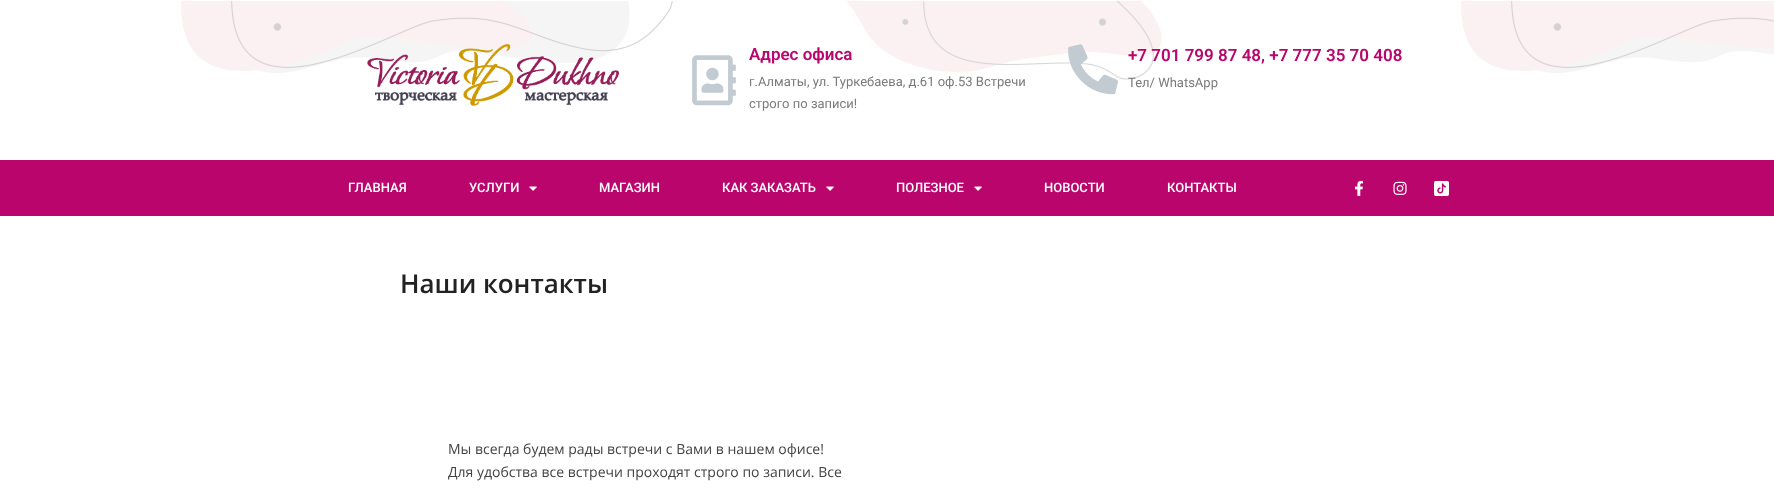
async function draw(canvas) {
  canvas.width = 1774;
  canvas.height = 489;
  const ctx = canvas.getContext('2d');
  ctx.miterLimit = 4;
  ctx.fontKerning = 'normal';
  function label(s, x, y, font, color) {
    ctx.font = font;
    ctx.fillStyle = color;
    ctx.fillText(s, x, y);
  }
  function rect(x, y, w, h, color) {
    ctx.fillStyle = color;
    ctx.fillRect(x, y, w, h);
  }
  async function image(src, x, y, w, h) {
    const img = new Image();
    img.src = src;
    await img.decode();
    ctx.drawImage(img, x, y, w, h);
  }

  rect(0, 0, 1774, 489, '#fff');
  await image('assets/img1.png', 0, 0, 1774, 160);
  await image('assets/img2.png', 367, 44, 252, 62);
  await image('assets/img3.png', 692, 55, 44, 51);
  label('Адрес офиса', 749, 60, '600 17px Roboto', '#ba056c');
  label('г.Алматы, ул. Туркебаева, д.61 оф.53 Встречи', 749, 86, '13px Roboto', '#7a7a7a');
  label('строго по записи!', 749, 108, '13px Roboto', '#7a7a7a');
  await image('assets/img4.png', 1068, 44, 50, 51);
  label('+7 701 799 87 48, +7 777 35 70 408', 1128, 61, '600 17px Roboto', '#ba056c');
  label('Тел/ WhatsApp', 1128, 87, '13px Roboto', '#7a7a7a');
  rect(0, 160, 1774, 56, '#ba056c');
  label('ГЛАВНАЯ', 348, 192, '500 13px Roboto', '#fff');
  label('УСЛУГИ', 469, 192, '500 13px Roboto', '#fff');
  await image('assets/img5.png', 529, 186, 8, 5);
  label('МАГАЗИН', 599, 192, '500 13px Roboto', '#fff');
  label('КАК ЗАКАЗАТЬ', 722, 192, '500 13px Roboto', '#fff');
  await image('assets/img5.png', 826, 186, 8, 5);
  label('ПОЛЕЗНОЕ', 896, 192, '500 13px Roboto', '#fff');
  await image('assets/img5.png', 974, 186, 8, 5);
  label('НОВОСТИ', 1044, 192, '500 13px Roboto', '#fff');
  label('КОНТАКТЫ', 1167, 192, '500 13px Roboto', '#fff');
  await image('assets/img6.png', 1355, 180, 8, 16);
  await image('assets/img7.png', 1393, 181, 14, 14);
  await image('assets/img8.png', 1434, 181, 15, 15);
  label('Наши контакты', 400, 293, '600 26px Open Sans', '#222');
  label('Мы всегда будем рады встречи с Вами в нашем офисе!', 448, 454, '14px Open Sans', '#444');
  label('Для удобства все встречи проходят строго по записи. Все', 448, 477, '14px Open Sans', '#444');
}

draw(document.querySelector('canvas'));
